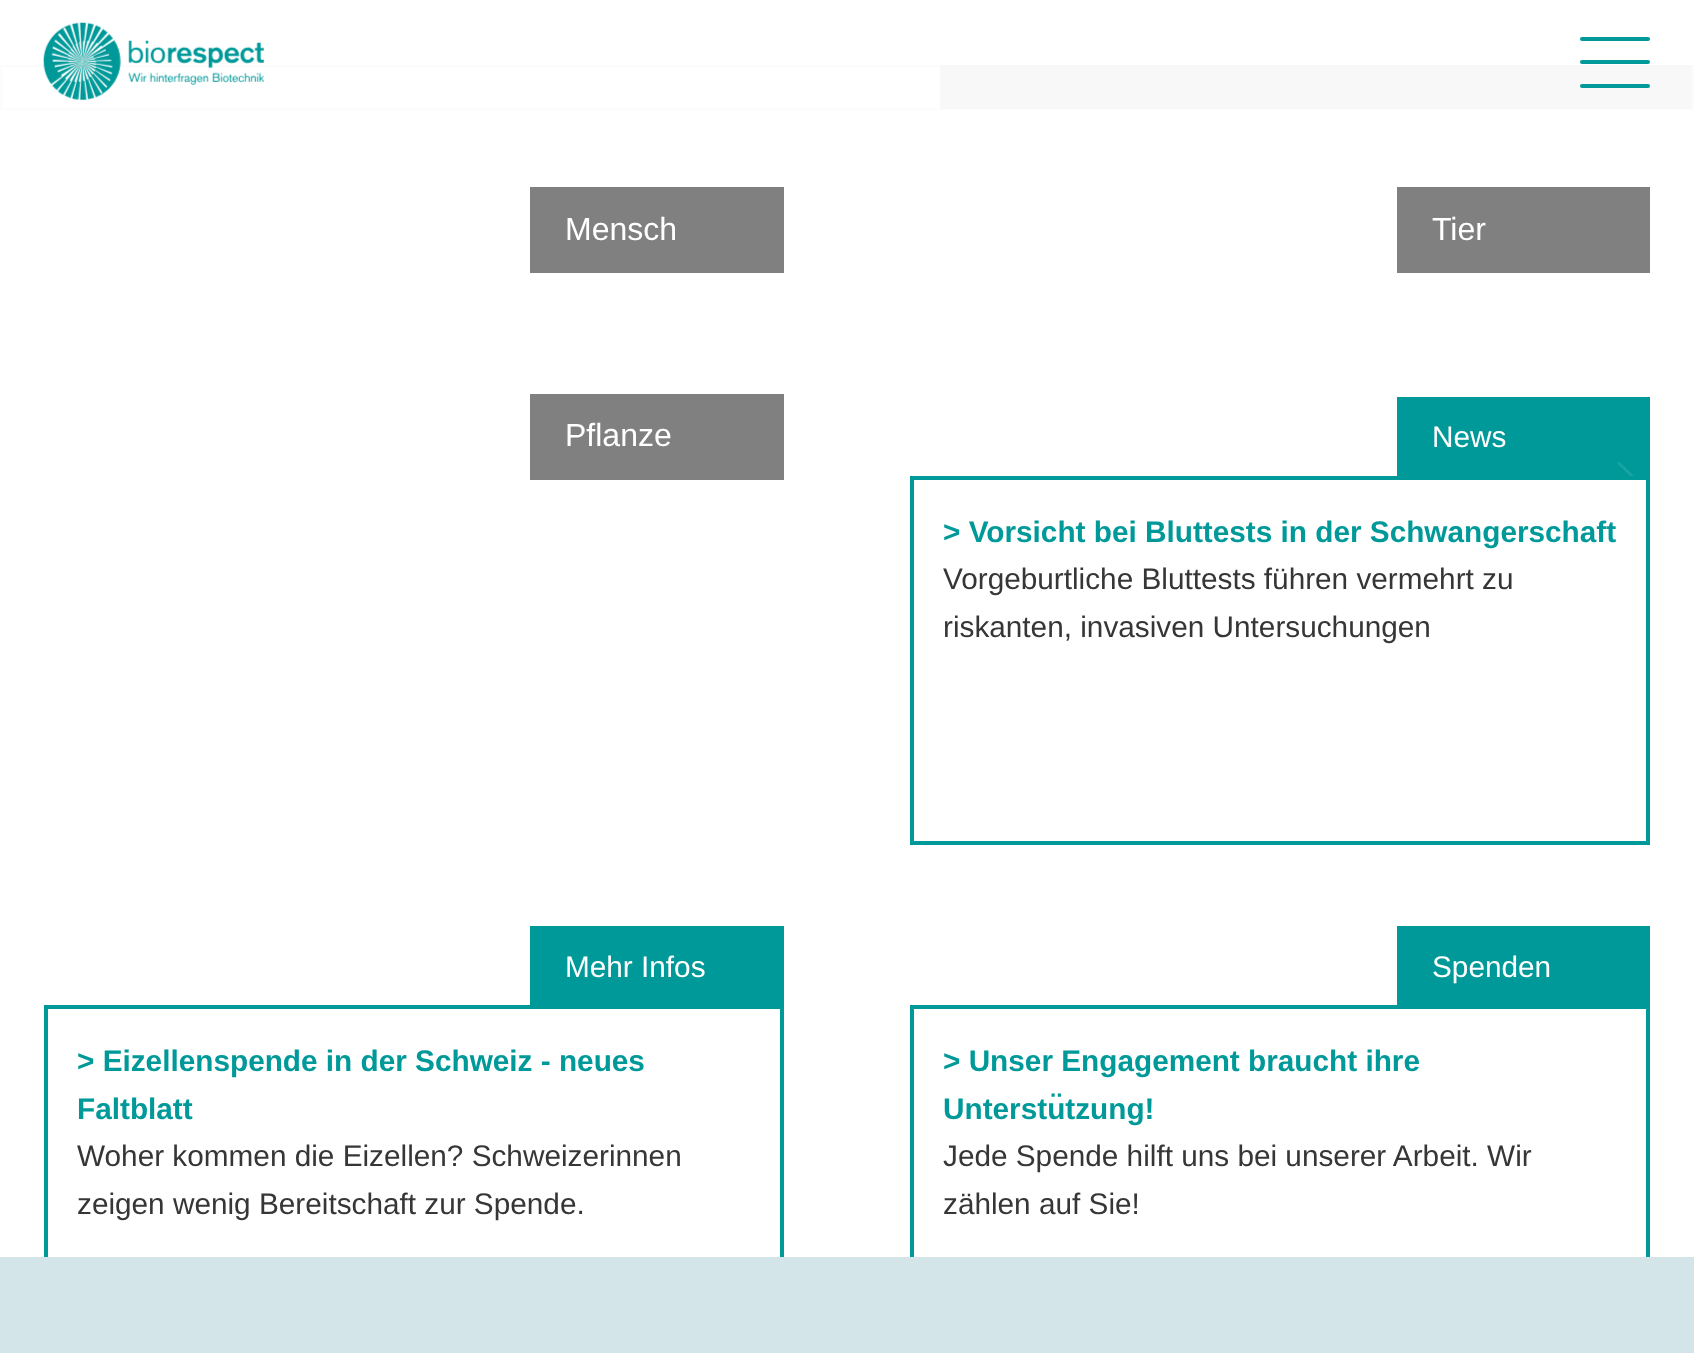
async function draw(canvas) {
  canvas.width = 1694;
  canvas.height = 1353;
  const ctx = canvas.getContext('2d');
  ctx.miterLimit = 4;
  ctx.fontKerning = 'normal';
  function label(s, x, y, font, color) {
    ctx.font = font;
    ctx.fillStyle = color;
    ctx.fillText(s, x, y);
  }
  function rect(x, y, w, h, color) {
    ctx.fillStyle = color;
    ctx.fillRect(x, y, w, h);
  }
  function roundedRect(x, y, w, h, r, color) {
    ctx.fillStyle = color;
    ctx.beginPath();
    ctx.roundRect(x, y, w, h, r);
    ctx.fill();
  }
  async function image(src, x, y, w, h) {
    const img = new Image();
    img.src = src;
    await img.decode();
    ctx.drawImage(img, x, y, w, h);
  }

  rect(0, 0, 1694, 1353, '#fff');
  ctx.strokeStyle = '#fcfcfc';
  ctx.lineWidth = 2;
  ctx.strokeRect(1, 66, 1692, 43);
  await image('assets/img1.png', 43, 22, 222, 78);
  roundedRect(1580, 37, 70, 4, 2, '#099');
  roundedRect(1580, 60, 70, 4, 2, '#099');
  rect(940, 65, 752, 44, '#f2f2f280');
  roundedRect(1580, 84, 70, 4, 2, '#099');
  rect(1397, 397, 253, 79, '#099');
  await image('assets/img2.png', 1617, 462, 17, 14);
  rect(530, 187, 254, 86, '#808080');
  label('Mensch', 565, 240, '32px Liberation Sans', '#fff');
  rect(1397, 187, 253, 86, '#808080');
  label('Tier', 1432, 240, '32px Liberation Sans', '#fff');
  rect(530, 394, 254, 86, '#808080');
  label('Pflanze', 565, 446, '32px Liberation Sans', '#fff');
  ctx.strokeStyle = '#099';
  ctx.lineWidth = 4;
  ctx.strokeRect(912, 478, 736, 365);
  label('News', 1432, 447, '29.75px Liberation Sans', '#fff');
  label('> Vorsicht bei Bluttests in der Schwangerschaft', 943, 542, 'bold 29.75px Liberation Sans', '#099');
  label('Vorgeburtliche Bluttests führen vermehrt zu', 943, 589, '29.75px Liberation Sans', '#363636');
  label('riskanten, invasiven Untersuchungen', 943, 637, '29.75px Liberation Sans', '#363636');
  ctx.strokeRect(46, 1007, 736, 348);
  rect(530, 926, 254, 79, '#099');
  label('Mehr Infos', 565, 977, '29.75px Liberation Sans', '#fff');
  label('> Eizellenspende in der Schweiz - neues', 77, 1071, 'bold 29.75px Liberation Sans', '#099');
  label('Faltblatt', 77, 1119, 'bold 29.75px Liberation Sans', '#099');
  label('Woher kommen die Eizellen? Schweizerinnen', 77, 1166, '29.75px Liberation Sans', '#363636');
  label('zeigen wenig Bereitschaft zur Spende.', 77, 1214, '29.75px Liberation Sans', '#363636');
  ctx.strokeRect(912, 1007, 736, 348);
  rect(1397, 926, 253, 79, '#099');
  label('Spenden', 1432, 977, '29.75px Liberation Sans', '#fff');
  label('> Unser Engagement braucht ihre', 943, 1071, 'bold 29.75px Liberation Sans', '#099');
  label('Unterstützung!', 943, 1119, 'bold 29.75px Liberation Sans', '#099');
  label('Jede Spende hilft uns bei unserer Arbeit. Wir', 943, 1166, '29.75px Liberation Sans', '#363636');
  label('zählen auf Sie!', 943, 1214, '29.75px Liberation Sans', '#363636');
  rect(0, 1257, 1694, 96, '#d3e5e8');
}

draw(document.querySelector('canvas'));
